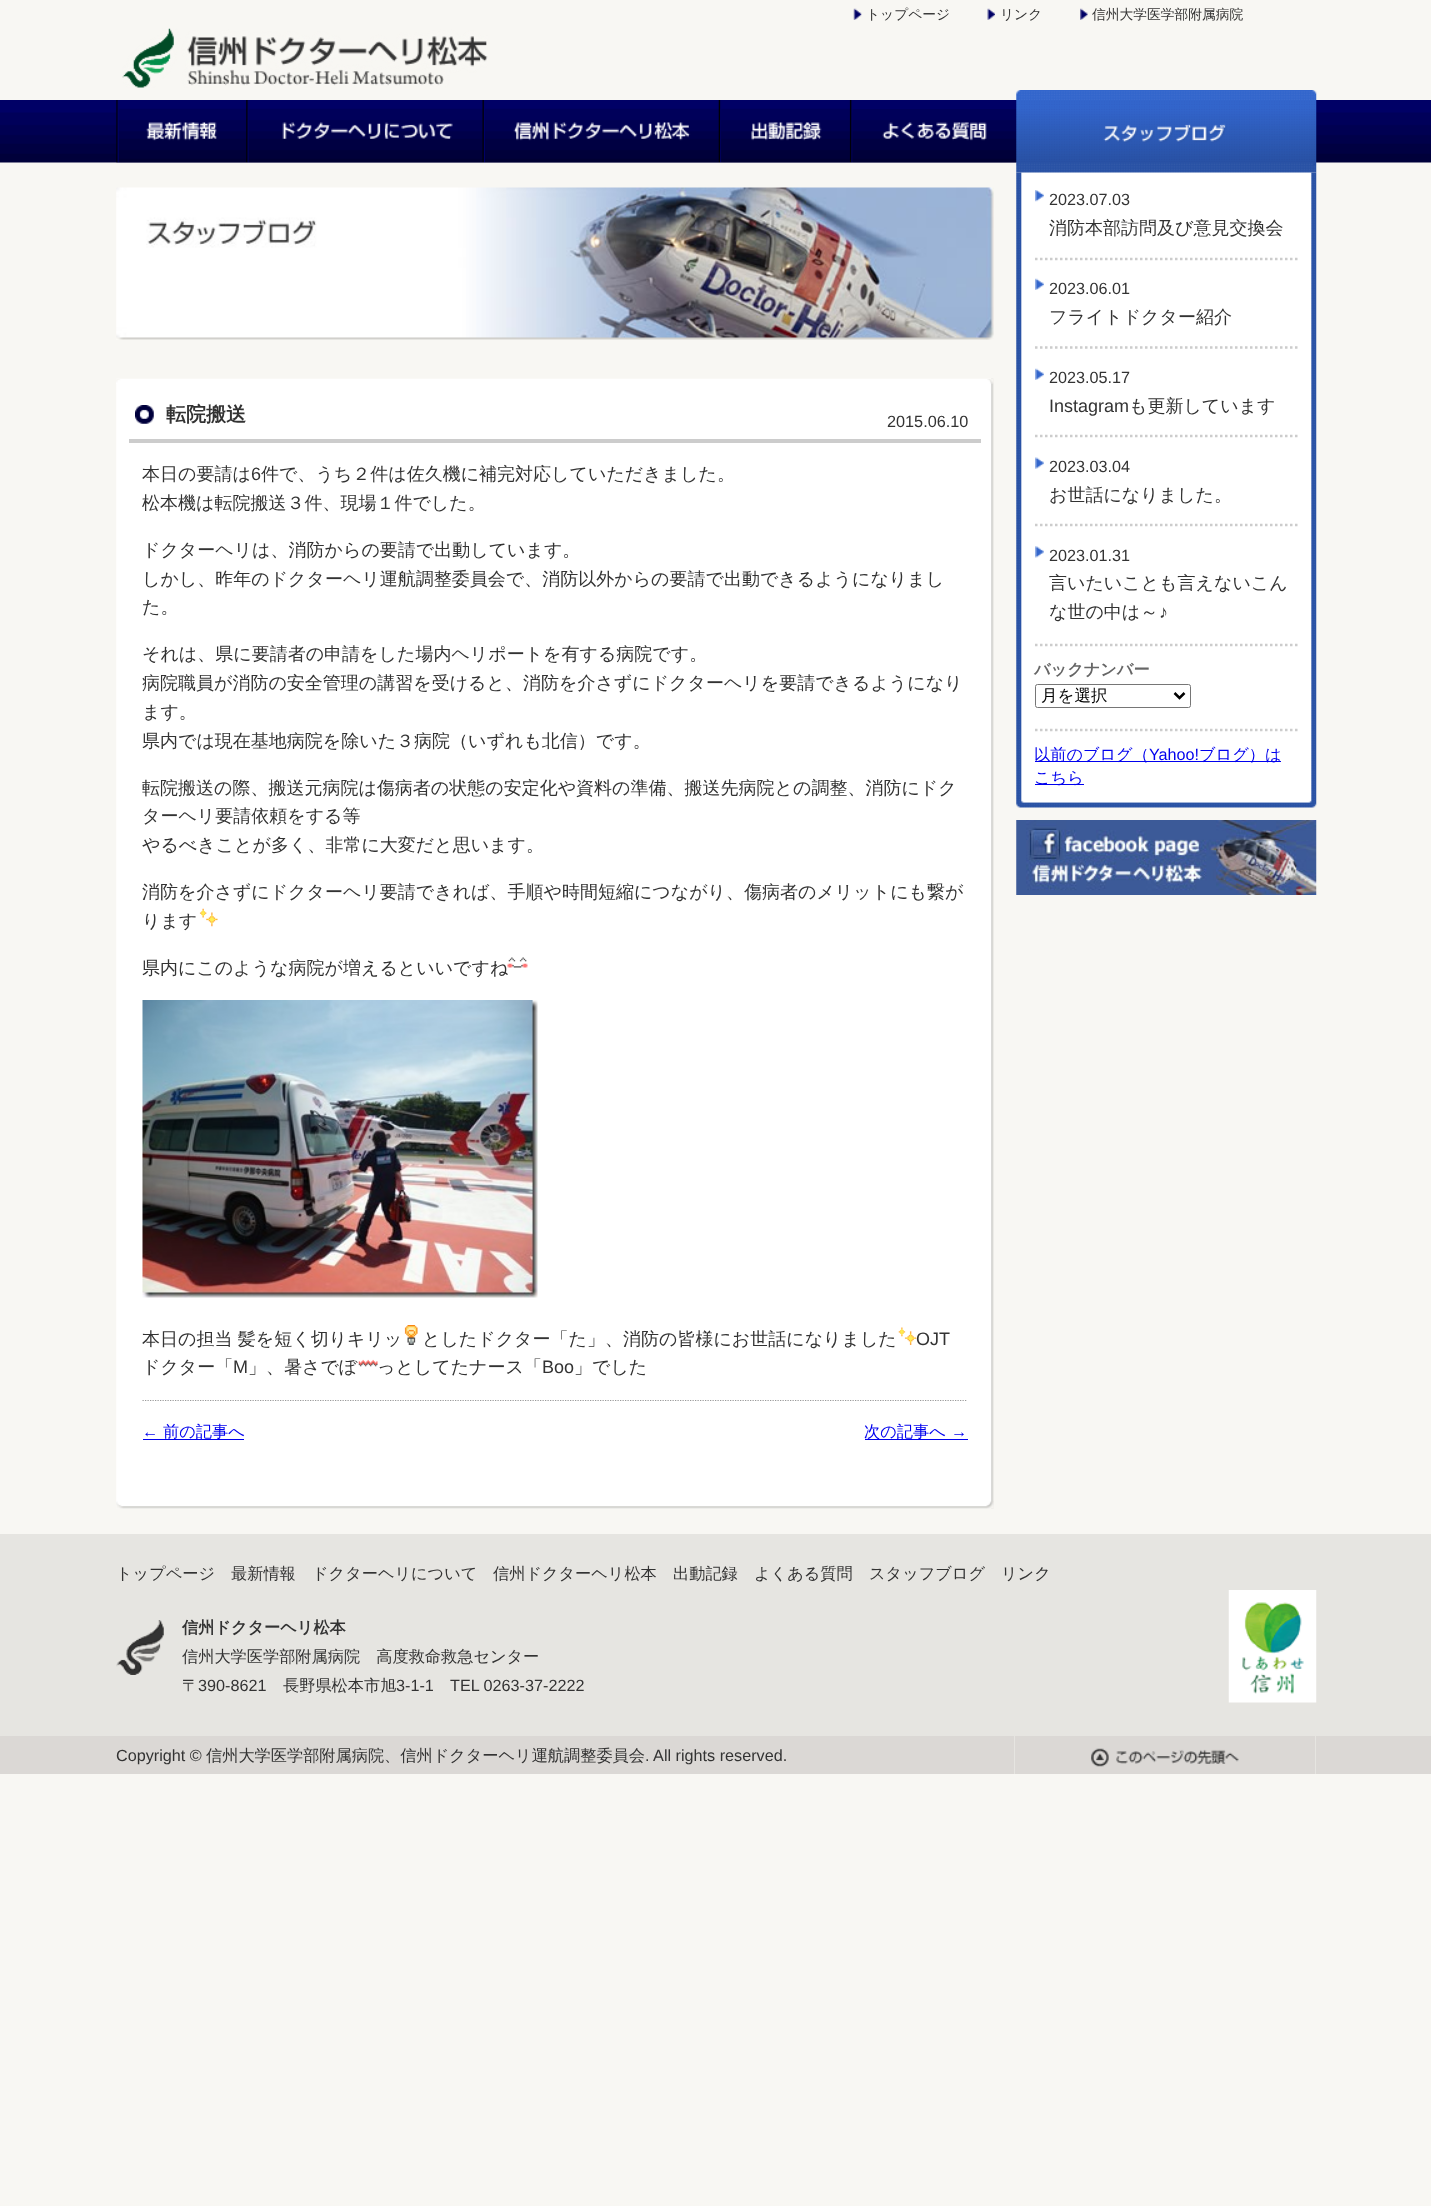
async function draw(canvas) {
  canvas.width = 1431;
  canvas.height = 2206;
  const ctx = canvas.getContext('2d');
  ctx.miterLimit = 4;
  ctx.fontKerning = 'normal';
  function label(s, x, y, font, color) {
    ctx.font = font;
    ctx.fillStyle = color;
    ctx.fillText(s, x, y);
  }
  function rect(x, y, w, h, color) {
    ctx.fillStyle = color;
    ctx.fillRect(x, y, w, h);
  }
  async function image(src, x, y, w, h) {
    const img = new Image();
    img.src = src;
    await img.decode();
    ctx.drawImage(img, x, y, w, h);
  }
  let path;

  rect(0, 0, 1431, 2206, '#f8f7f3');
  await image('assets/img1.png', 853, 8, 9, 12);
  label('トップページ', 866, 19, '500 13.75px WenQuanYi Zen Hei', '#333');
  await image('assets/img2.png', 987, 8, 8, 12);
  label('リンク', 1000, 19, '500 13.75px WenQuanYi Zen Hei', '#333');
  await image('assets/img3.png', 1080, 8, 8, 12);
  label('信州大学医学部附属病院', 1092, 19, '500 13.75px WenQuanYi Zen Hei', '#333');
  await image('assets/img4.png', 122, 28, 366, 60);
  await image('assets/img5.png', 0, 100, 1431, 63);
  await image('assets/img6.png', 116, 100, 133, 63);
  await image('assets/img7.png', 248, 100, 237, 63);
  await image('assets/img8.png', 485, 100, 237, 63);
  await image('assets/img9.png', 721, 100, 132, 63);
  await image('assets/img10.png', 852, 109, 164, 54);
  await image('assets/img11.png', 116, 187, 878, 153);
  await image('assets/img12.png', 116, 378, 878, 1131);
  await image('assets/img13.png', 116, 379, 878, 5);
  await image('assets/img14.png', 135, 405, 19, 19);
  rect(129, 439, 852, 4, '#ccc');
  label('転院搬送', 166, 421, 'bold 20px WenQuanYi Zen Hei', '#333');
  label('2015.06.10', 887, 427, '16.25px Liberation Sans', '#333');
  await image('assets/img15.png', 116, 1501, 878, 8);
  label('本日の要請は', 142, 480, '500 18px WenQuanYi Zen Hei', '#333');
  label('6', 251, 480, '18px Liberation Sans', '#333');
  label('件で、うち２件は佐久機に補完対応していただきました。', 261, 480, '500 18px WenQuanYi Zen Hei', '#333');
  label('松本機は転院搬送３件、現場１件でした。', 142, 509, '500 18px WenQuanYi Zen Hei', '#333');
  label('ドクターヘリは、消防からの要請で出動しています。', 142, 556, '500 18px WenQuanYi Zen Hei', '#333');
  label('しかし、昨年のドクターヘリ運航調整委員会で、消防以外からの要請で出動できるようになりまし', 142, 585, '500 18px WenQuanYi Zen Hei', '#333');
  label('た。', 142, 613, '500 18px WenQuanYi Zen Hei', '#333');
  label('それは、県に要請者の申請をした場内ヘリポートを有する病院です。', 142, 660, '500 18px WenQuanYi Zen Hei', '#333');
  label('病院職員が消防の安全管理の講習を受けると、消防を介さずにドクターヘリを要請できるようになり', 142, 689, '500 18px WenQuanYi Zen Hei', '#333');
  label('ます。', 142, 718, '500 18px WenQuanYi Zen Hei', '#333');
  label('県内では現在基地病院を除いた３病院（いずれも北信）です。', 142, 747, '500 18px WenQuanYi Zen Hei', '#333');
  label('転院搬送の際、搬送元病院は傷病者の状態の安定化や資料の準備、搬送先病院との調整、消防にドク', 142, 794, '500 18px WenQuanYi Zen Hei', '#333');
  label('ターヘリ要請依頼をする等', 142, 822, '500 18px WenQuanYi Zen Hei', '#333');
  label('やるべきことが多く、非常に大変だと思います。', 142, 851, '500 18px WenQuanYi Zen Hei', '#333');
  label('消防を介さずにドクターヘリ要請できれば、手順や時間短縮につながり、傷病者のメリットにも繋が', 142, 898, '500 18px WenQuanYi Zen Hei', '#333');
  label('ります', 142, 927, '500 18px WenQuanYi Zen Hei', '#333');
  await image('assets/img16.png', 199, 908, 19, 19);
  label('県内にこのような病院が増えるといいですね', 142, 974, '500 18px WenQuanYi Zen Hei', '#333');
  await image('assets/img17.png', 507, 957, 21, 17);
  await image('assets/img18.png', 142, 1000, 396, 298);
  label('本日の担当 髪を短く切りキリッ', 142, 1345, '500 18px WenQuanYi Zen Hei', '#333');
  await image('assets/img19.png', 404, 1325, 14, 20);
  label('としたドクター「た」、消防の皆様にお世話になりました', 422, 1345, '500 18px WenQuanYi Zen Hei', '#333');
  await image('assets/img20.png', 898, 1327, 19, 18);
  label('OJT', 916, 1345, '18px Liberation Sans', '#333');
  label('ドクター「', 142, 1373, '500 18px WenQuanYi Zen Hei', '#333');
  label('M', 233, 1373, '18px Liberation Sans', '#333');
  label('」、暑さでぼ', 248, 1373, '500 18px WenQuanYi Zen Hei', '#333');
  await image('assets/img21.png', 358, 1359, 20, 8);
  label('っとしてたナース「', 377, 1373, '500 18px WenQuanYi Zen Hei', '#333');
  label('Boo', 542, 1373, '18px Liberation Sans', '#333');
  label('」でした', 574, 1373, '500 18px WenQuanYi Zen Hei', '#333');
  path = new Path2D('M142.5 1400.5H967.5');
  ctx.strokeStyle = '#999';
  ctx.lineWidth = 1.2;
  ctx.setLineDash([1.25, 1.25]);
  ctx.stroke(path);
  label('←', 142, 1437, '16.2px Liberation Sans', '#00e');
  rect(143, 1439, 101, 1, '#00e');
  label('前の記事へ', 163, 1437, '500 16.2px WenQuanYi Zen Hei', '#00e');
  rect(865, 1439, 103, 1, '#00e');
  label('次の記事へ', 864, 1437, '500 16.2px WenQuanYi Zen Hei', '#00e');
  label('→', 951, 1437, '16.2px Liberation Sans', '#00e');
  await image('assets/img23.png', 1016, 172, 301, 636);
  await image('assets/img22.png', 1016, 90, 301, 83);
  await image('assets/img24.png', 1035, 190, 9, 12);
  path = new Path2D('M1035 259H1297.5');
  ctx.strokeStyle = '#ccc';
  ctx.lineWidth = 2.5;
  ctx.setLineDash([2.5, 2.5]);
  ctx.stroke(path);
  label('2023.07.03', 1049, 205, '16.2px Liberation Sans', '#333');
  label('消防本部訪問及び意見交換会', 1049, 234, '500 18px WenQuanYi Zen Hei', '#333');
  await image('assets/img25.png', 1035, 278, 9, 12);
  path = new Path2D('M1035 347.5H1297.5');
  ctx.stroke(path);
  label('2023.06.01', 1049, 294, '16.2px Liberation Sans', '#333');
  label('フライトドクター紹介', 1049, 323, '500 18px WenQuanYi Zen Hei', '#333');
  await image('assets/img25.png', 1035, 368, 9, 12);
  path = new Path2D('M1035 436H1297.5');
  ctx.stroke(path);
  label('2023.05.17', 1049, 383, '16.2px Liberation Sans', '#333');
  label('Instagram', 1049, 412, '18px Liberation Sans', '#333');
  label('も更新しています', 1129, 412, '500 18px WenQuanYi Zen Hei', '#333');
  await image('assets/img26.png', 1035, 457, 9, 12);
  path = new Path2D('M1035 525H1297.5');
  ctx.stroke(path);
  label('2023.03.04', 1049, 472, '16.2px Liberation Sans', '#333');
  label('お世話になりました。', 1049, 501, '500 18px WenQuanYi Zen Hei', '#333');
  await image('assets/img27.png', 1035, 546, 9, 12);
  label('2023.01.31', 1049, 561, '16.2px Liberation Sans', '#333');
  label('言いたいことも言えないこん', 1049, 589, '500 18px WenQuanYi Zen Hei', '#333');
  label('な世の中は～', 1049, 618, '500 18px WenQuanYi Zen Hei', '#333');
  label('♪', 1159, 618, '18px Liberation Sans', '#333');
  path = new Path2D('M1035 645H1297.5');
  ctx.stroke(path);
  label('バックナンバー', 1034, 675, 'bold 16.2px WenQuanYi Zen Hei', '#666');
  ctx.beginPath();
  ctx.roundRect(1035.5, 684.5, 155, 23, 2);
  ctx.strokeStyle = '#767676';
  ctx.lineWidth = 1;
  ctx.setLineDash([]);
  ctx.stroke();
  path = new Path2D('M1174.5 693L1179.5 698L1184.5 693');
  ctx.strokeStyle = '#000';
  ctx.lineWidth = 2.5;
  ctx.stroke(path);
  label('月を選択', 1041, 701, '500 16.5px WenQuanYi Zen Hei', '#000');
  path = new Path2D('M1035 730H1297.5');
  ctx.strokeStyle = '#ccc';
  ctx.setLineDash([2.5, 2.5]);
  ctx.stroke(path);
  rect(1035, 761, 246, 1, '#00e');
  label('以前のブログ（', 1034, 760, '500 16.2px WenQuanYi Zen Hei', '#00e');
  label('Yahoo!', 1149, 760, '16.2px Liberation Sans', '#00e');
  label('ブログ）は', 1199, 760, '500 16.2px WenQuanYi Zen Hei', '#00e');
  rect(1035, 784, 49, 1, '#00e');
  label('こちら', 1034, 783, '500 16.2px WenQuanYi Zen Hei', '#00e');
  await image('assets/img28.png', 1016, 820, 301, 75);
  rect(0, 1534, 1431, 202, '#e6e5e1');
  rect(0, 1736, 1431, 38, '#dbd8d5');
  label('トップページ', 116, 1579, '500 16.2px WenQuanYi Zen Hei', '#333');
  label('最新情報', 231, 1579, '500 16.2px WenQuanYi Zen Hei', '#333');
  label('ドクターヘリについて', 312, 1579, '500 16.2px WenQuanYi Zen Hei', '#333');
  label('信州ドクターヘリ松本', 493, 1579, '500 16.2px WenQuanYi Zen Hei', '#333');
  label('出動記録', 673, 1579, '500 16.2px WenQuanYi Zen Hei', '#333');
  label('よくある質問', 754, 1579, '500 16.2px WenQuanYi Zen Hei', '#333');
  label('スタッフブログ', 869, 1579, '500 16.2px WenQuanYi Zen Hei', '#333');
  label('リンク', 1001, 1579, '500 16.2px WenQuanYi Zen Hei', '#333');
  await image('assets/img29.png', 116, 1620, 48, 55);
  label('信州ドクターヘリ松本', 182, 1633, 'bold 16.2px WenQuanYi Zen Hei', '#333');
  label('信州大学医学部附属病院　高度救命救急センター', 182, 1662, '500 16.2px WenQuanYi Zen Hei', '#333');
  label('〒', 182, 1691, '500 16.2px WenQuanYi Zen Hei', '#333');
  label('390-8621', 198, 1691, '16.2px Liberation Sans', '#333');
  label('長野県松本市旭', 283, 1691, '500 16.2px WenQuanYi Zen Hei', '#333');
  label('3-1-1', 396, 1691, '16.2px Liberation Sans', '#333');
  label('TEL 0263-37-2222', 450, 1691, '16.2px Liberation Sans', '#333');
  await image('assets/img30.png', 1228, 1590, 89, 113);
  label('Copyright ©', 116, 1761, '16.2px Liberation Sans', '#333');
  label('信州大学医学部附属病院、信州ドクターヘリ運航調整委員会', 206, 1761, '500 16.2px WenQuanYi Zen Hei', '#333');
  label('. All rights reserved.', 645, 1761, '16.2px Liberation Sans', '#333');
  rect(1315, 1736, 1, 38, '#e6e5e1');
  rect(1014, 1736, 1, 38, '#e6e5e1');
  await image('assets/img31.png', 1091, 1748, 148, 19);
}

draw(document.querySelector('canvas'));
